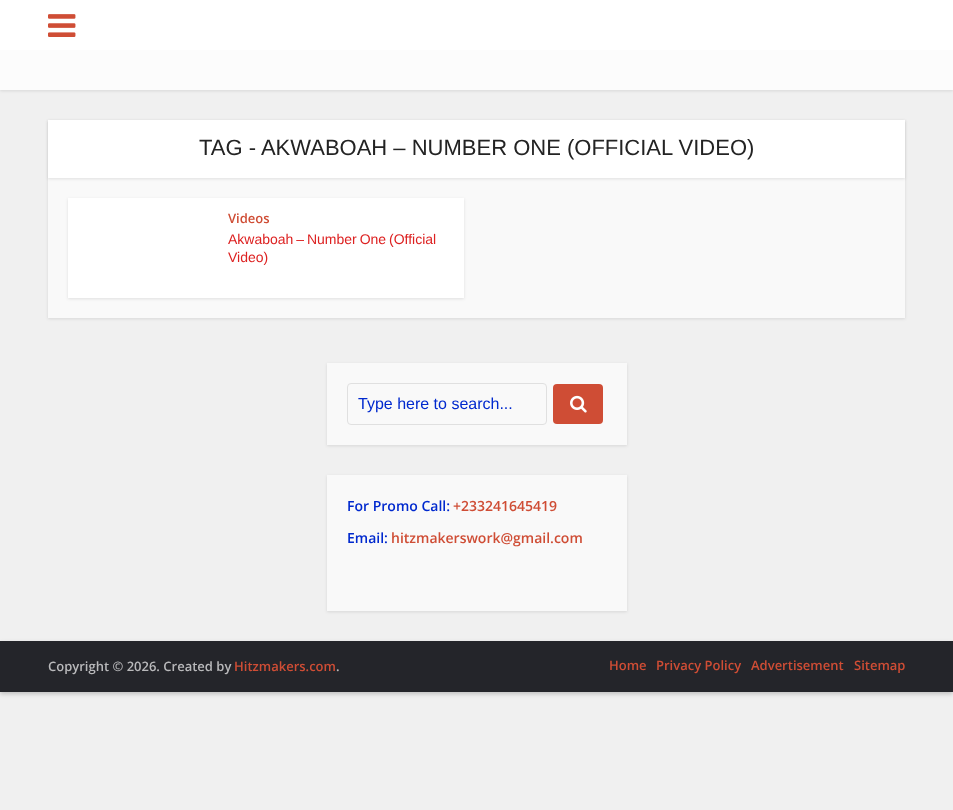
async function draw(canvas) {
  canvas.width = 953;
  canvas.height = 810;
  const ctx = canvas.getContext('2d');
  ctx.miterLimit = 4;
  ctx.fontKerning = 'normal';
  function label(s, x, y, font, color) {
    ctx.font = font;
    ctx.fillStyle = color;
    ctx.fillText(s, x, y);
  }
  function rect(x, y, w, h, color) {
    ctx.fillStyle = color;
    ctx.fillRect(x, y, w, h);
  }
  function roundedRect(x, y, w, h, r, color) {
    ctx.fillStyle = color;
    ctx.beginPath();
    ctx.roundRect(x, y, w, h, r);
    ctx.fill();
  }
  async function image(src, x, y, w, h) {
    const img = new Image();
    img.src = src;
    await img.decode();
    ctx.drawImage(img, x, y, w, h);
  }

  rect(0, 0, 953, 810, '#f0f0f0');
  ctx.fillStyle = '#0000001a';
  ctx.filter = 'blur(1.5px)';
  ctx.beginPath();
  ctx.rect(0, 1, 953, 90);
  ctx.fill();
  ctx.filter = 'none';
  rect(0, 0, 953, 50, '#fff');
  await image('assets/img1.png', 48, 14, 28, 23);
  rect(0, 50, 953, 40, '#fcfcfc');
  ctx.fillStyle = '#0000001a';
  ctx.filter = 'blur(1.5px)';
  ctx.beginPath();
  ctx.rect(48, 121, 857, 198);
  ctx.fill();
  ctx.filter = 'none';
  rect(48, 178, 857, 140, '#f9f9f9');
  ctx.fillStyle = '#0000001a';
  ctx.filter = 'blur(1.5px)';
  ctx.beginPath();
  ctx.rect(48, 121, 857, 58);
  ctx.fill();
  ctx.filter = 'none';
  rect(48, 120, 857, 58, '#fff');
  label('TAG - AKWABOAH – NUMBER ONE (OFFICIAL VIDEO)', 199, 155, '22px Liberation Sans', '#232323');
  ctx.fillStyle = '#0000001a';
  ctx.filter = 'blur(1.5px)';
  ctx.beginPath();
  ctx.rect(68, 199, 396, 100);
  ctx.fill();
  ctx.filter = 'none';
  rect(68, 198, 396, 100, '#fff');
  label('Videos', 228, 223, '600 13px Open Sans', '#cf4d35');
  ctx.wordSpacing = '-1px';
  label('Akwaboah – Number One (Official', 228, 244, '14px Liberation Sans', '#dd2121');
  ctx.wordSpacing = '0px';
  label('Video)', 228, 262, '14px Liberation Sans', '#dd2121');
  ctx.fillStyle = '#0000001a';
  ctx.filter = 'blur(1.5px)';
  ctx.beginPath();
  ctx.rect(327, 364, 300, 82);
  ctx.fill();
  ctx.filter = 'none';
  rect(327, 363, 300, 82, '#f9f9f9');
  ctx.beginPath();
  ctx.roundRect(347.5, 383.5, 199, 41, 3.5);
  ctx.strokeStyle = '#e0e0e0';
  ctx.stroke();
  label('Type here to search...', 358, 409, '16px Liberation Sans', '#0029ce');
  roundedRect(553, 384, 50, 40, 4, '#cf4d35');
  await image('assets/img2.png', 570, 395, 17, 18);
  ctx.fillStyle = '#0000001a';
  ctx.filter = 'blur(1.5px)';
  ctx.beginPath();
  ctx.rect(327, 476, 300, 136);
  ctx.fill();
  ctx.filter = 'none';
  rect(327, 475, 300, 136, '#f9f9f9');
  label('For Promo Call:', 347, 511, '600 14px Open Sans', '#0029ce');
  label('+233241645419', 453, 511, '600 14px Open Sans', '#cf4d35');
  label('Email:', 347, 543, '600 14px Open Sans', '#0029ce');
  label('hitzmakerswork@gmail.com', 391, 543, '600 14px Open Sans', '#cf4d35');
  ctx.fillStyle = '#00000033';
  ctx.filter = 'blur(2px)';
  ctx.beginPath();
  ctx.rect(0, 643, 953, 51);
  ctx.fill();
  ctx.filter = 'none';
  rect(0, 641, 953, 51, '#24252a');
  label('Copyright © 2026. Created by', 48, 671, '600 13px Open Sans', '#b9b9bb');
  label('Hitzmakers.com', 234, 671, '600 13px Open Sans', '#cf4d35');
  label('.', 336, 671, '600 13px Open Sans', '#b9b9bb');
  label('Home', 609, 670, '600 13px Open Sans', '#cf4d35');
  label('Privacy Policy', 656, 670, '600 13px Open Sans', '#cf4d35');
  label('Advertisement', 751, 670, '600 13px Open Sans', '#cf4d35');
  label('Sitemap', 854, 670, '600 13px Open Sans', '#cf4d35');
}

draw(document.querySelector('canvas'));
